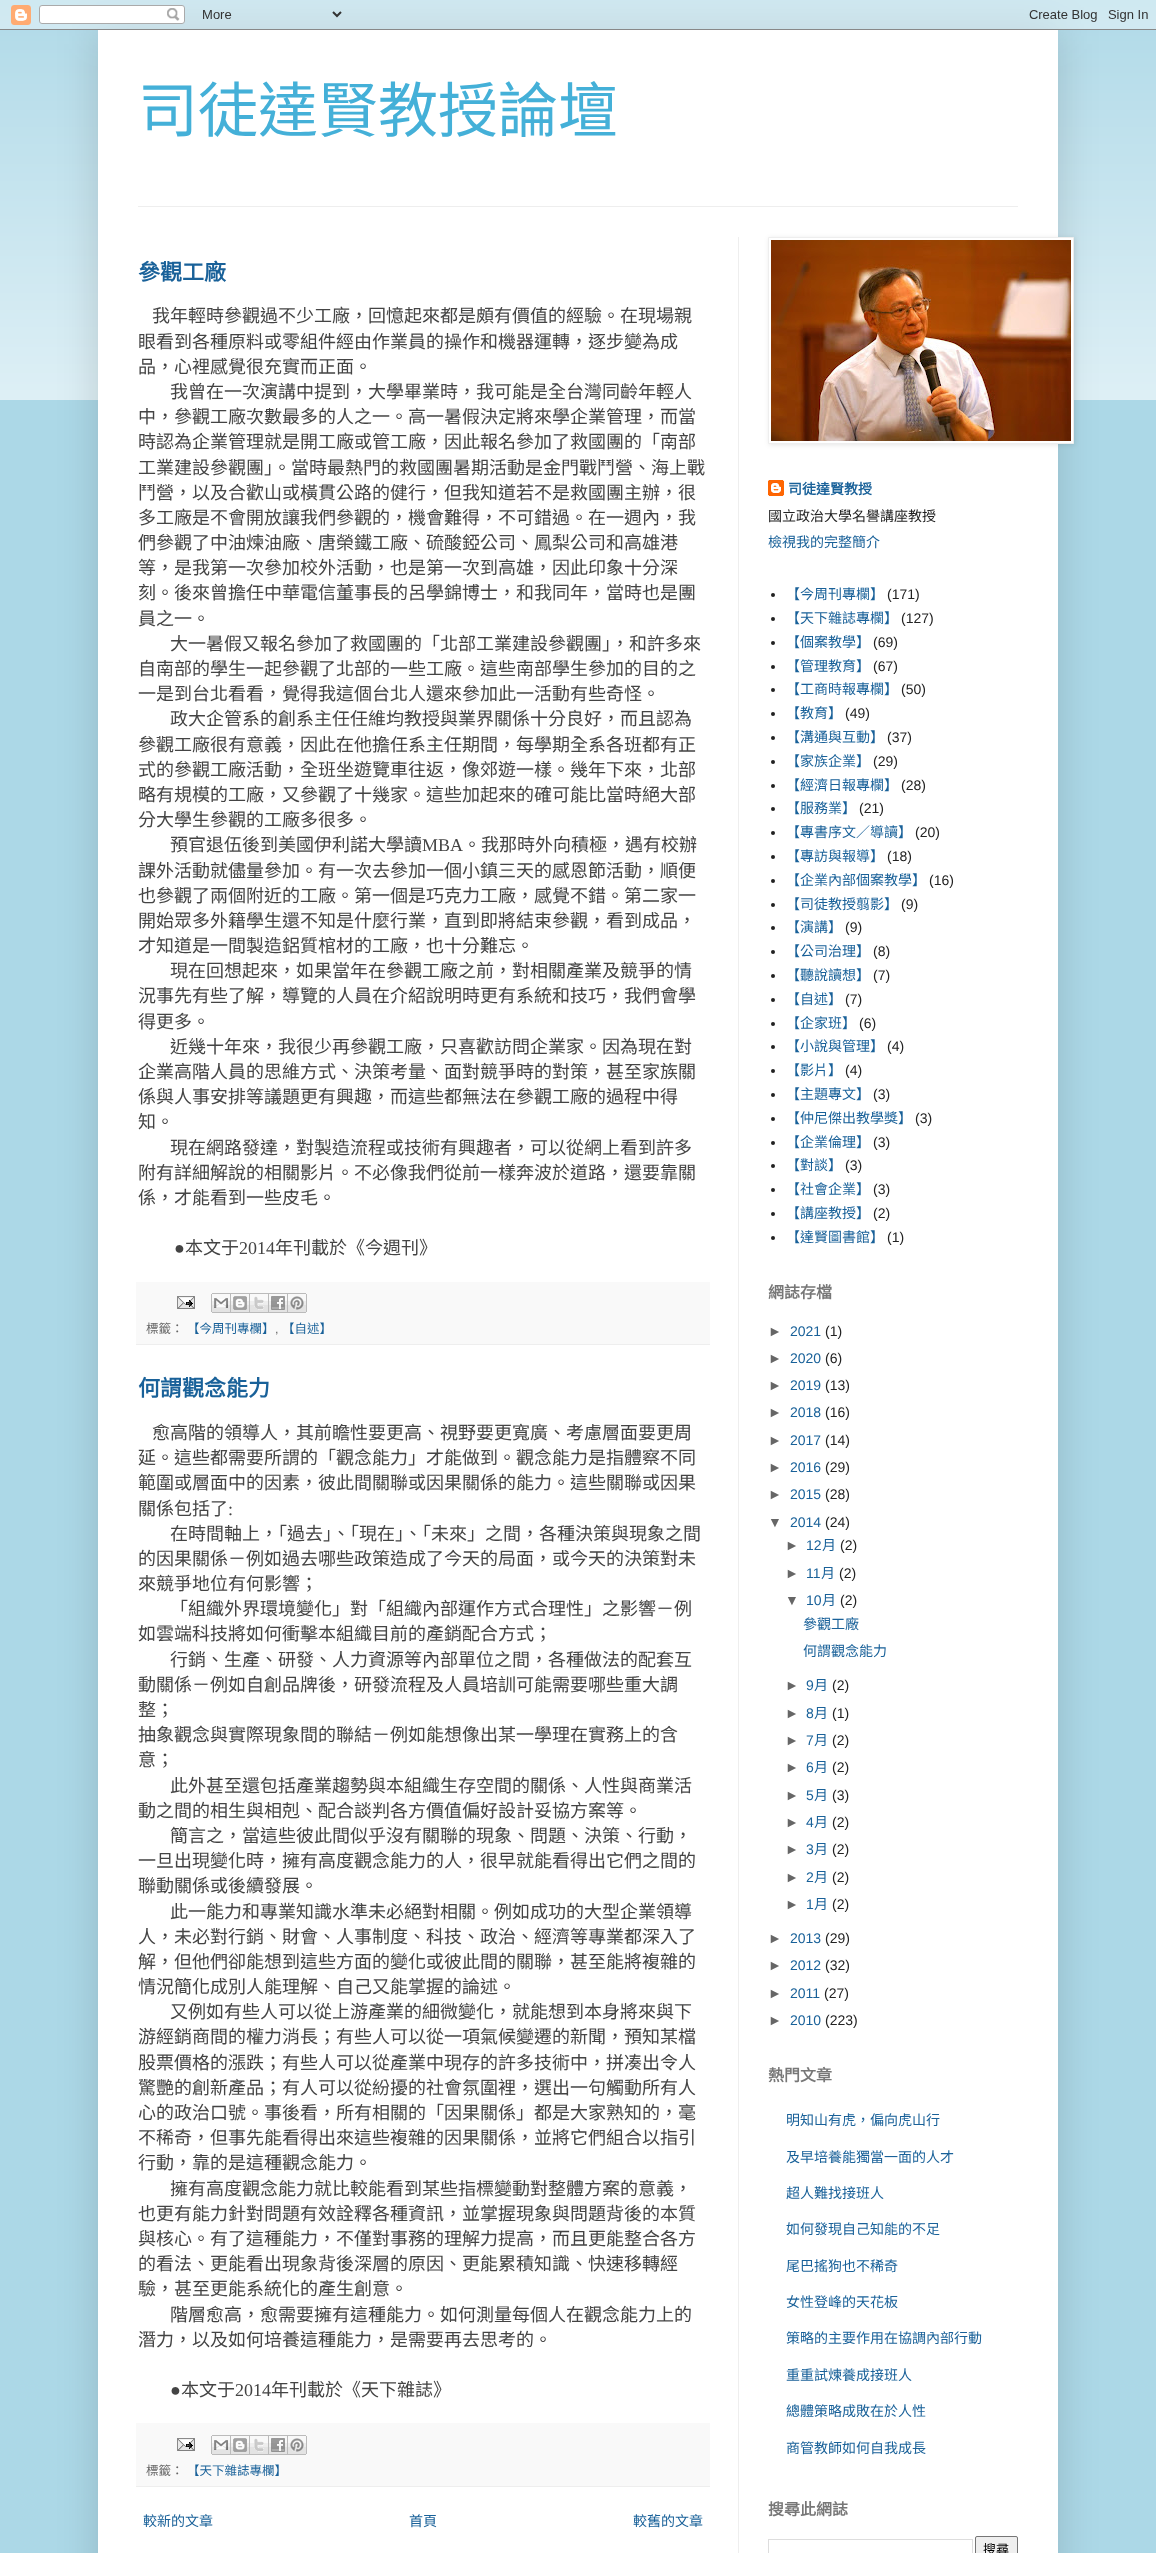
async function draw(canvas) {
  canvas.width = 1156;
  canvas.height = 2553;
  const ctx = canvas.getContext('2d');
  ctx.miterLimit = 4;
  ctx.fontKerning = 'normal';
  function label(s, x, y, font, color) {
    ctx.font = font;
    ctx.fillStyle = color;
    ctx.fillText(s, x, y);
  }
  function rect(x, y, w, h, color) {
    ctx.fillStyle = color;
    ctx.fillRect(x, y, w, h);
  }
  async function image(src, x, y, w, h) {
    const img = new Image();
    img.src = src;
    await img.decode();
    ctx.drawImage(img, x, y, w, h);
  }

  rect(0, 0, 1156, 2553, '#acd8e7');
  await image('assets/img1.png', 0, 0, 1156, 400);
  ctx.fillStyle = '#00000026';
  ctx.filter = 'blur(20px)';
  ctx.beginPath();
  ctx.rect(98, 30, 960, 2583);
  ctx.fill();
  ctx.filter = 'none';
  await image('assets/img2.png', 0, 0, 1156, 30);
  rect(98, 30, 960, 2523, '#fff');
  label('司徒達賢教授論壇', 138, 132, '60px Noto Sans CJK TC', '#44b0d8');
  rect(138, 206, 880, 1, '#eee');
  rect(738, 237, 1, 2316, '#eee');
  label('參觀工廠', 138, 280, 'bold 22px Noto Sans CJK TC', '#196199');
  label('我年輕時參觀過不少工廠，回憶起來都是頗有價值的經驗。在現場親', 152, 322, '18px Noto Sans CJK TC', '#444');
  label('眼看到各種原料或零組件經由作業員的操作和機器運轉，逐步變為成', 138, 348, '18px Noto Sans CJK TC', '#444');
  label('品，心裡感覺很充實而正面。', 138, 373, '18px Noto Sans CJK TC', '#444');
  label('我曾在一次演講中提到，大學畢業時，我可能是全台灣同齡年輕人', 170, 398, '18px Noto Sans CJK TC', '#444');
  label('中，參觀工廠次數最多的人之一。高一暑假決定將來學企業管理，而當', 138, 423, '18px Noto Sans CJK TC', '#444');
  label('時認為企業管理就是開工廠或管工廠，因此報名參加了救國團的「南部', 138, 448, '18px Noto Sans CJK TC', '#444');
  label('工業建設參觀團」。當時最熱門的救國團暑期活動是金門戰鬥營、海上戰', 138, 474, '18px Noto Sans CJK TC', '#444');
  label('鬥營，以及合歡山或橫貫公路的健行，但我知道若不是救國團主辦，很', 138, 499, '18px Noto Sans CJK TC', '#444');
  label('多工廠是不會開放讓我們參觀的，機會難得，不可錯過。在一週內，我', 138, 524, '18px Noto Sans CJK TC', '#444');
  label('們參觀了中油煉油廠、唐榮鐵工廠、硫酸錏公司、鳳梨公司和高雄港', 138, 549, '18px Noto Sans CJK TC', '#444');
  label('等，是我第一次參加校外活動，也是第一次到高雄，因此印象十分深', 138, 574, '18px Noto Sans CJK TC', '#444');
  label('刻。後來曾擔任中華電信董事長的呂學錦博士，和我同年，當時也是團', 138, 599, '18px Noto Sans CJK TC', '#444');
  label('員之一。', 138, 625, '18px Noto Sans CJK TC', '#444');
  label('大一暑假又報名參加了救國團的「北部工業建設參觀團」，和許多來', 170, 650, '18px Noto Sans CJK TC', '#444');
  label('自南部的學生一起參觀了北部的一些工廠。這些南部學生參加的目的之', 138, 675, '18px Noto Sans CJK TC', '#444');
  label('一是到台北看看，覺得我這個台北人還來參加此一活動有些奇怪。', 138, 700, '18px Noto Sans CJK TC', '#444');
  label('政大企管系的創系主任任維均教授與業界關係十分良好，而且認為', 170, 725, '18px Noto Sans CJK TC', '#444');
  label('參觀工廠很有意義，因此在他擔任系主任期間，每學期全系各班都有正', 138, 751, '18px Noto Sans CJK TC', '#444');
  label('式的參觀工廠活動，全班坐遊覽車往返，像郊遊一樣。幾年下來，北部', 138, 776, '18px Noto Sans CJK TC', '#444');
  label('略有規模的工廠，又參觀了十幾家。這些加起來的確可能比當時絕大部', 138, 801, '18px Noto Sans CJK TC', '#444');
  label('分大學生參觀的工廠多很多。', 138, 826, '18px Noto Sans CJK TC', '#444');
  label('預官退伍後到美國伊利諾大學讀', 170, 851, '18px Noto Sans CJK TC', '#444');
  label('MBA', 422, 851, '18px Liberation Serif', '#444');
  label('。我那時外向積極，遇有校辦', 463, 851, '18px Noto Sans CJK TC', '#444');
  label('課外活動就儘量參加。有一次去參加一個小鎮三天的感恩節活動，順便', 138, 877, '18px Noto Sans CJK TC', '#444');
  label('也參觀了兩個附近的工廠。第一個是巧克力工廠，感覺不錯。第二家一', 138, 902, '18px Noto Sans CJK TC', '#444');
  label('開始眾多外籍學生還不知是什麼行業，直到即將結束參觀，看到成品，', 138, 927, '18px Noto Sans CJK TC', '#444');
  label('才知道是一間製造鋁質棺材的工廠，也十分難忘。', 138, 952, '18px Noto Sans CJK TC', '#444');
  label('現在回想起來，如果當年在參觀工廠之前，對相關產業及競爭的情', 170, 977, '18px Noto Sans CJK TC', '#444');
  label('況事先有些了解，導覽的人員在介紹說明時更有系統和技巧，我們會學', 138, 1002, '18px Noto Sans CJK TC', '#444');
  label('得更多。', 138, 1028, '18px Noto Sans CJK TC', '#444');
  label('近幾十年來，我很少再參觀工廠，只喜歡訪問企業家。因為現在對', 170, 1053, '18px Noto Sans CJK TC', '#444');
  label('企業高階人員的思維方式、決策考量、面對競爭時的對策，甚至家族關', 138, 1078, '18px Noto Sans CJK TC', '#444');
  label('係與人事安排等議題更有興趣，而這些都無法在參觀工廠的過程中得', 138, 1103, '18px Noto Sans CJK TC', '#444');
  label('知。', 138, 1128, '18px Noto Sans CJK TC', '#444');
  label('現在網路發達，對製造流程或技術有興趣者，可以從網上看到許多', 170, 1154, '18px Noto Sans CJK TC', '#444');
  label('附有詳細解說的相關影片。不必像我們從前一樣奔波於道路，還要靠關', 138, 1179, '18px Noto Sans CJK TC', '#444');
  label('係，才能看到一些皮毛。', 138, 1204, '18px Noto Sans CJK TC', '#444');
  label('●', 174, 1254, '18px Liberation Serif', '#444');
  label('本文于', 185, 1254, '18px Noto Sans CJK TC', '#444');
  label('2014', 239, 1254, '18px Liberation Serif', '#444');
  label('年刊載於《今週刊》', 275, 1254, '18px Noto Sans CJK TC', '#444');
  rect(136, 1282, 574, 62, '#f9f9f9');
  rect(136, 1344, 574, 1, '#eee');
  await image('assets/img3.png', 177, 1296, 18, 13);
  await image('assets/img4.png', 211, 1293, 20, 20);
  await image('assets/img5.png', 231, 1293, 19, 20);
  await image('assets/img6.png', 250, 1293, 19, 20);
  await image('assets/img7.png', 269, 1293, 19, 20);
  await image('assets/img8.png', 288, 1293, 19, 20);
  label('標籤：', 146, 1333, '12.5px Noto Sans CJK TC', '#666');
  label('【今周刊專欄】', 187, 1333, '12.5px Noto Sans CJK TC', '#196199');
  label(',', 275, 1333, '12.5px Liberation Sans', '#666');
  label('【自述】', 282, 1333, '12.5px Noto Sans CJK TC', '#196199');
  label('何謂觀念能力', 138, 1396, 'bold 22px Noto Sans CJK TC', '#196199');
  label('愈高階的領導人，其前瞻性要更高、視野要更寬廣、考慮層面要更周', 152, 1439, '18px Noto Sans CJK TC', '#444');
  label('延。這些都需要所謂的「觀念能力」才能做到。觀念能力是指體察不同', 138, 1464, '18px Noto Sans CJK TC', '#444');
  label('範圍或層面中的因素，彼此間關聯或因果關係的能力。這些關聯或因果', 138, 1489, '18px Noto Sans CJK TC', '#444');
  label('關係包括了', 138, 1515, '18px Noto Sans CJK TC', '#444');
  label(':', 228, 1515, '18px Liberation Serif', '#444');
  label('在時間軸上，「過去」、「現在」、「未來」之間，各種決策與現象之間', 170, 1540, '18px Noto Sans CJK TC', '#444');
  label('的因果關係－例如過去哪些政策造成了今天的局面，或今天的決策對未', 138, 1565, '18px Noto Sans CJK TC', '#444');
  label('來競爭地位有何影響；', 138, 1590, '18px Noto Sans CJK TC', '#444');
  label('「組織外界環境變化」對「組織內部運作方式合理性」之影響－例', 170, 1615, '18px Noto Sans CJK TC', '#444');
  label('如雲端科技將如何衝擊本組織目前的產銷配合方式；', 138, 1640, '18px Noto Sans CJK TC', '#444');
  label('行銷、生產、研發、人力資源等內部單位之間，各種做法的配套互', 170, 1666, '18px Noto Sans CJK TC', '#444');
  label('動關係－例如自創品牌後，研發流程及人員培訓可能需要哪些重大調', 138, 1691, '18px Noto Sans CJK TC', '#444');
  label('整；', 138, 1716, '18px Noto Sans CJK TC', '#444');
  label('抽象觀念與實際現象間的聯結－例如能想像出某一學理在實務上的含', 138, 1741, '18px Noto Sans CJK TC', '#444');
  label('意；', 138, 1766, '18px Noto Sans CJK TC', '#444');
  label('此外甚至還包括產業趨勢與本組織生存空間的關係、人性與商業活', 170, 1792, '18px Noto Sans CJK TC', '#444');
  label('動之間的相生與相剋、配合談判各方價值偏好設計妥協方案等。', 138, 1817, '18px Noto Sans CJK TC', '#444');
  label('簡言之，當這些彼此間似乎沒有關聯的現象、問題、決策、行動，', 170, 1842, '18px Noto Sans CJK TC', '#444');
  label('一旦出現變化時，擁有高度觀念能力的人，很早就能看得出它們之間的', 138, 1867, '18px Noto Sans CJK TC', '#444');
  label('聯動關係或後續發展。', 138, 1892, '18px Noto Sans CJK TC', '#444');
  label('此一能力和專業知識水準未必絕對相關。例如成功的大型企業領導', 170, 1918, '18px Noto Sans CJK TC', '#444');
  label('人，未必對行銷、財會、人事制度、科技、政治、經濟等專業都深入了', 138, 1943, '18px Noto Sans CJK TC', '#444');
  label('解，但他們卻能想到這些方面的變化或彼此間的關聯，甚至能將複雜的', 138, 1968, '18px Noto Sans CJK TC', '#444');
  label('情況簡化成別人能理解、自己又能掌握的論述。', 138, 1993, '18px Noto Sans CJK TC', '#444');
  label('又例如有些人可以從上游產業的細微變化，就能想到本身將來與下', 170, 2018, '18px Noto Sans CJK TC', '#444');
  label('游經銷商間的權力消長；有些人可以從一項氣候變遷的新聞，預知某檔', 138, 2043, '18px Noto Sans CJK TC', '#444');
  label('股票價格的漲跌；有些人可以從產業中現存的許多技術中，拼凑出令人', 138, 2069, '18px Noto Sans CJK TC', '#444');
  label('驚艷的創新產品；有人可以從紛擾的社會氛圍裡，選出一句觸動所有人', 138, 2094, '18px Noto Sans CJK TC', '#444');
  label('心的政治口號。事後看，所有相關的「因果關係」都是大家熟知的，毫', 138, 2119, '18px Noto Sans CJK TC', '#444');
  label('不稀奇，但事先能看得出來這些複雜的因果關係，並將它們組合以指引', 138, 2144, '18px Noto Sans CJK TC', '#444');
  label('行動，靠的是這種觀念能力。', 138, 2169, '18px Noto Sans CJK TC', '#444');
  label('擁有高度觀念能力就比較能看到某些指標變動對整體方案的意義，', 170, 2195, '18px Noto Sans CJK TC', '#444');
  label('也更有能力針對問題有效詮釋各種資訊，並掌握現象與問題背後的本質', 138, 2220, '18px Noto Sans CJK TC', '#444');
  label('與核心。有了這種能力，不僅對事務的理解力提高，而且更能整合各方', 138, 2245, '18px Noto Sans CJK TC', '#444');
  label('的看法、更能看出現象背後深層的原因、更能累積知識、快速移轉經', 138, 2270, '18px Noto Sans CJK TC', '#444');
  label('驗，甚至更能系統化的產生創意。', 138, 2295, '18px Noto Sans CJK TC', '#444');
  label('階層愈高，愈需要擁有這種能力。如何測量每個人在觀念能力上的', 170, 2321, '18px Noto Sans CJK TC', '#444');
  label('潛力，以及如何培養這種能力，是需要再去思考的。', 138, 2346, '18px Noto Sans CJK TC', '#444');
  label('●', 170, 2396, '18px Liberation Serif', '#444');
  label('本文于', 181, 2396, '18px Noto Sans CJK TC', '#444');
  label('2014', 235, 2396, '18px Liberation Serif', '#444');
  label('年刊載於《天下雜誌》', 271, 2396, '18px Noto Sans CJK TC', '#444');
  rect(136, 2423, 574, 63, '#f9f9f9');
  rect(136, 2486, 574, 1, '#eee');
  await image('assets/img3.png', 177, 2438, 18, 13);
  await image('assets/img4.png', 211, 2435, 20, 20);
  await image('assets/img5.png', 231, 2435, 19, 20);
  await image('assets/img6.png', 250, 2435, 19, 20);
  await image('assets/img7.png', 269, 2435, 19, 20);
  await image('assets/img8.png', 288, 2435, 19, 20);
  label('標籤：', 146, 2475, '12.5px Noto Sans CJK TC', '#666');
  label('【天下雜誌專欄】', 187, 2475, '12.5px Noto Sans CJK TC', '#196199');
  label('較新的文章', 143, 2526, '14px Noto Sans CJK TC', '#196199');
  label('首頁', 409, 2526, '14px Noto Sans CJK TC', '#196199');
  label('較舊的文章', 633, 2526, '14px Noto Sans CJK TC', '#196199');
  ctx.fillStyle = '#0000001a';
  ctx.filter = 'blur(2.5px)';
  ctx.beginPath();
  ctx.rect(769, 238, 306, 207);
  ctx.fill();
  ctx.filter = 'none';
  ctx.fillStyle = '#fff';
  ctx.beginPath();
  ctx.rect(768.5, 237.5, 305, 206);
  ctx.fill();
  ctx.strokeStyle = '#eee';
  ctx.stroke();
  await image('assets/img9.png', 771, 240, 300, 201);
  await image('assets/img10.png', 768, 480, 16, 16);
  label('司徒達賢教授', 788, 494, 'bold 14px Noto Sans CJK TC', '#196199');
  label('國立政治大學名譽講座教授', 768, 521, '14px Noto Sans CJK TC', '#222');
  label('檢視我的完整簡介', 768, 547, '14px Noto Sans CJK TC', '#196199');
  ctx.fillStyle = '#222';
  ctx.beginPath();
  ctx.arc(773, 595, 2, 0, 2 * Math.PI);
  ctx.fill();
  label('【今周刊專欄】', 786, 599, '14px Noto Sans CJK TC', '#196199');
  label('(171)', 887, 599, '14px Liberation Sans', '#222');
  ctx.beginPath();
  ctx.arc(773, 619, 2, 0, 2 * Math.PI);
  ctx.fill();
  label('【天下雜誌專欄】', 786, 623, '14px Noto Sans CJK TC', '#196199');
  label('(127)', 901, 623, '14px Liberation Sans', '#222');
  ctx.beginPath();
  ctx.arc(773, 643, 2, 0, 2 * Math.PI);
  ctx.fill();
  label('【個案教學】', 786, 647, '14px Noto Sans CJK TC', '#196199');
  label('(69)', 873, 647, '14px Liberation Sans', '#222');
  ctx.beginPath();
  ctx.arc(773, 667, 2, 0, 2 * Math.PI);
  ctx.fill();
  label('【管理教育】', 786, 671, '14px Noto Sans CJK TC', '#196199');
  label('(67)', 873, 671, '14px Liberation Sans', '#222');
  ctx.beginPath();
  ctx.arc(773, 690, 2, 0, 2 * Math.PI);
  ctx.fill();
  label('【工商時報專欄】', 786, 694, '14px Noto Sans CJK TC', '#196199');
  label('(50)', 901, 694, '14px Liberation Sans', '#222');
  ctx.beginPath();
  ctx.arc(773, 714, 2, 0, 2 * Math.PI);
  ctx.fill();
  label('【教育】', 786, 718, '14px Noto Sans CJK TC', '#196199');
  label('(49)', 845, 718, '14px Liberation Sans', '#222');
  ctx.beginPath();
  ctx.arc(773, 738, 2, 0, 2 * Math.PI);
  ctx.fill();
  label('【溝通與互動】', 786, 742, '14px Noto Sans CJK TC', '#196199');
  label('(37)', 887, 742, '14px Liberation Sans', '#222');
  ctx.beginPath();
  ctx.arc(773, 762, 2, 0, 2 * Math.PI);
  ctx.fill();
  label('【家族企業】', 786, 766, '14px Noto Sans CJK TC', '#196199');
  label('(29)', 873, 766, '14px Liberation Sans', '#222');
  ctx.beginPath();
  ctx.arc(773, 786, 2, 0, 2 * Math.PI);
  ctx.fill();
  label('【經濟日報專欄】', 786, 790, '14px Noto Sans CJK TC', '#196199');
  label('(28)', 901, 790, '14px Liberation Sans', '#222');
  ctx.beginPath();
  ctx.arc(773, 809, 2, 0, 2 * Math.PI);
  ctx.fill();
  label('【服務業】', 786, 813, '14px Noto Sans CJK TC', '#196199');
  label('(21)', 859, 813, '14px Liberation Sans', '#222');
  ctx.beginPath();
  ctx.arc(773, 833, 2, 0, 2 * Math.PI);
  ctx.fill();
  label('【專書序文／導讀】', 786, 837, '14px Noto Sans CJK TC', '#196199');
  label('(20)', 915, 837, '14px Liberation Sans', '#222');
  ctx.beginPath();
  ctx.arc(773, 857, 2, 0, 2 * Math.PI);
  ctx.fill();
  label('【專訪與報導】', 786, 861, '14px Noto Sans CJK TC', '#196199');
  label('(18)', 887, 861, '14px Liberation Sans', '#222');
  ctx.beginPath();
  ctx.arc(773, 881, 2, 0, 2 * Math.PI);
  ctx.fill();
  label('【企業內部個案教學】', 786, 885, '14px Noto Sans CJK TC', '#196199');
  label('(16)', 929, 885, '14px Liberation Sans', '#222');
  ctx.beginPath();
  ctx.arc(773, 905, 2, 0, 2 * Math.PI);
  ctx.fill();
  label('【司徒教授翦影】', 786, 909, '14px Noto Sans CJK TC', '#196199');
  label('(9)', 901, 909, '14px Liberation Sans', '#222');
  ctx.beginPath();
  ctx.arc(773, 928, 2, 0, 2 * Math.PI);
  ctx.fill();
  label('【演講】', 786, 932, '14px Noto Sans CJK TC', '#196199');
  label('(9)', 845, 932, '14px Liberation Sans', '#222');
  ctx.beginPath();
  ctx.arc(773, 952, 2, 0, 2 * Math.PI);
  ctx.fill();
  label('【公司治理】', 786, 956, '14px Noto Sans CJK TC', '#196199');
  label('(8)', 873, 956, '14px Liberation Sans', '#222');
  ctx.beginPath();
  ctx.arc(773, 976, 2, 0, 2 * Math.PI);
  ctx.fill();
  label('【聽說讀想】', 786, 980, '14px Noto Sans CJK TC', '#196199');
  label('(7)', 873, 980, '14px Liberation Sans', '#222');
  ctx.beginPath();
  ctx.arc(773, 1000, 2, 0, 2 * Math.PI);
  ctx.fill();
  label('【自述】', 786, 1004, '14px Noto Sans CJK TC', '#196199');
  label('(7)', 845, 1004, '14px Liberation Sans', '#222');
  ctx.beginPath();
  ctx.arc(773, 1024, 2, 0, 2 * Math.PI);
  ctx.fill();
  label('【企家班】', 786, 1028, '14px Noto Sans CJK TC', '#196199');
  label('(6)', 859, 1028, '14px Liberation Sans', '#222');
  ctx.beginPath();
  ctx.arc(773, 1047, 2, 0, 2 * Math.PI);
  ctx.fill();
  label('【小說與管理】', 786, 1051, '14px Noto Sans CJK TC', '#196199');
  label('(4)', 887, 1051, '14px Liberation Sans', '#222');
  ctx.beginPath();
  ctx.arc(773, 1071, 2, 0, 2 * Math.PI);
  ctx.fill();
  label('【影片】', 786, 1075, '14px Noto Sans CJK TC', '#196199');
  label('(4)', 845, 1075, '14px Liberation Sans', '#222');
  ctx.beginPath();
  ctx.arc(773, 1095, 2, 0, 2 * Math.PI);
  ctx.fill();
  label('【主題專文】', 786, 1099, '14px Noto Sans CJK TC', '#196199');
  label('(3)', 873, 1099, '14px Liberation Sans', '#222');
  ctx.beginPath();
  ctx.arc(773, 1119, 2, 0, 2 * Math.PI);
  ctx.fill();
  label('【仲尼傑出教學獎】', 786, 1123, '14px Noto Sans CJK TC', '#196199');
  label('(3)', 915, 1123, '14px Liberation Sans', '#222');
  ctx.beginPath();
  ctx.arc(773, 1143, 2, 0, 2 * Math.PI);
  ctx.fill();
  label('【企業倫理】', 786, 1147, '14px Noto Sans CJK TC', '#196199');
  label('(3)', 873, 1147, '14px Liberation Sans', '#222');
  ctx.beginPath();
  ctx.arc(773, 1166, 2, 0, 2 * Math.PI);
  ctx.fill();
  label('【對談】', 786, 1170, '14px Noto Sans CJK TC', '#196199');
  label('(3)', 845, 1170, '14px Liberation Sans', '#222');
  ctx.beginPath();
  ctx.arc(773, 1190, 2, 0, 2 * Math.PI);
  ctx.fill();
  label('【社會企業】', 786, 1194, '14px Noto Sans CJK TC', '#196199');
  label('(3)', 873, 1194, '14px Liberation Sans', '#222');
  ctx.beginPath();
  ctx.arc(773, 1214, 2, 0, 2 * Math.PI);
  ctx.fill();
  label('【講座教授】', 786, 1218, '14px Noto Sans CJK TC', '#196199');
  label('(2)', 873, 1218, '14px Liberation Sans', '#222');
  ctx.beginPath();
  ctx.arc(773, 1238, 2, 0, 2 * Math.PI);
  ctx.fill();
  label('【達賢圖書館】', 786, 1242, '14px Noto Sans CJK TC', '#196199');
  label('(1)', 887, 1242, '14px Liberation Sans', '#222');
  label('網誌存檔', 768, 1298, 'bold 16px Noto Sans CJK TC', '#777');
  label('►', 768, 1336, '14px Liberation Sans', '#666');
  label('2021', 790, 1336, '14px Liberation Sans', '#196199');
  label('(1)', 825, 1336, '14px Liberation Sans', '#222');
  label('►', 768, 1363, '14px Liberation Sans', '#666');
  label('2020', 790, 1363, '14px Liberation Sans', '#196199');
  label('(6)', 825, 1363, '14px Liberation Sans', '#222');
  label('►', 768, 1390, '14px Liberation Sans', '#666');
  label('2019', 790, 1390, '14px Liberation Sans', '#196199');
  label('(13)', 825, 1390, '14px Liberation Sans', '#222');
  label('►', 768, 1417, '14px Liberation Sans', '#666');
  label('2018', 790, 1417, '14px Liberation Sans', '#196199');
  label('(16)', 825, 1417, '14px Liberation Sans', '#222');
  label('►', 768, 1445, '14px Liberation Sans', '#666');
  label('2017', 790, 1445, '14px Liberation Sans', '#196199');
  label('(14)', 825, 1445, '14px Liberation Sans', '#222');
  label('►', 768, 1472, '14px Liberation Sans', '#666');
  label('2016', 790, 1472, '14px Liberation Sans', '#196199');
  label('(29)', 825, 1472, '14px Liberation Sans', '#222');
  label('►', 768, 1499, '14px Liberation Sans', '#666');
  label('2015', 790, 1499, '14px Liberation Sans', '#196199');
  label('(28)', 825, 1499, '14px Liberation Sans', '#222');
  label('▼', 768, 1527, '14px Liberation Sans', '#666');
  label('2014', 790, 1527, '14px Liberation Sans', '#196199');
  label('(24)', 825, 1527, '14px Liberation Sans', '#222');
  label('►', 785, 1550, '14px Liberation Sans', '#666');
  label('12', 806, 1550, '14px Liberation Sans', '#196199');
  label('月', 822, 1550, '14px Noto Sans CJK TC', '#196199');
  label('(2)', 840, 1550, '14px Liberation Sans', '#222');
  label('►', 785, 1578, '14px Liberation Sans', '#666');
  label('11', 806, 1578, '14px Liberation Sans', '#196199');
  label('月', 821, 1578, '14px Noto Sans CJK TC', '#196199');
  label('(2)', 839, 1578, '14px Liberation Sans', '#222');
  label('▼', 785, 1605, '14px Liberation Sans', '#666');
  label('10', 806, 1605, '14px Liberation Sans', '#196199');
  label('月', 822, 1605, '14px Noto Sans CJK TC', '#196199');
  label('(2)', 840, 1605, '14px Liberation Sans', '#222');
  label('參觀工廠', 803, 1629, '14px Noto Sans CJK TC', '#196199');
  label('何謂觀念能力', 803, 1656, '14px Noto Sans CJK TC', '#196199');
  label('►', 785, 1690, '14px Liberation Sans', '#666');
  label('9', 806, 1690, '14px Liberation Sans', '#196199');
  label('月', 814, 1690, '14px Noto Sans CJK TC', '#196199');
  label('(2)', 832, 1690, '14px Liberation Sans', '#222');
  label('►', 785, 1718, '14px Liberation Sans', '#666');
  label('8', 806, 1718, '14px Liberation Sans', '#196199');
  label('月', 814, 1718, '14px Noto Sans CJK TC', '#196199');
  label('(1)', 832, 1718, '14px Liberation Sans', '#222');
  label('►', 785, 1745, '14px Liberation Sans', '#666');
  label('7', 806, 1745, '14px Liberation Sans', '#196199');
  label('月', 814, 1745, '14px Noto Sans CJK TC', '#196199');
  label('(2)', 832, 1745, '14px Liberation Sans', '#222');
  label('►', 785, 1772, '14px Liberation Sans', '#666');
  label('6', 806, 1772, '14px Liberation Sans', '#196199');
  label('月', 814, 1772, '14px Noto Sans CJK TC', '#196199');
  label('(2)', 832, 1772, '14px Liberation Sans', '#222');
  label('►', 785, 1800, '14px Liberation Sans', '#666');
  label('5', 806, 1800, '14px Liberation Sans', '#196199');
  label('月', 814, 1800, '14px Noto Sans CJK TC', '#196199');
  label('(3)', 832, 1800, '14px Liberation Sans', '#222');
  label('►', 785, 1827, '14px Liberation Sans', '#666');
  label('4', 806, 1827, '14px Liberation Sans', '#196199');
  label('月', 814, 1827, '14px Noto Sans CJK TC', '#196199');
  label('(2)', 832, 1827, '14px Liberation Sans', '#222');
  label('►', 785, 1854, '14px Liberation Sans', '#666');
  label('3', 806, 1854, '14px Liberation Sans', '#196199');
  label('月', 814, 1854, '14px Noto Sans CJK TC', '#196199');
  label('(2)', 832, 1854, '14px Liberation Sans', '#222');
  label('►', 785, 1882, '14px Liberation Sans', '#666');
  label('2', 806, 1882, '14px Liberation Sans', '#196199');
  label('月', 814, 1882, '14px Noto Sans CJK TC', '#196199');
  label('(2)', 832, 1882, '14px Liberation Sans', '#222');
  label('►', 785, 1909, '14px Liberation Sans', '#666');
  label('1', 806, 1909, '14px Liberation Sans', '#196199');
  label('月', 814, 1909, '14px Noto Sans CJK TC', '#196199');
  label('(2)', 832, 1909, '14px Liberation Sans', '#222');
  label('►', 768, 1943, '14px Liberation Sans', '#666');
  label('2013', 790, 1943, '14px Liberation Sans', '#196199');
  label('(29)', 825, 1943, '14px Liberation Sans', '#222');
  label('►', 768, 1970, '14px Liberation Sans', '#666');
  label('2012', 790, 1970, '14px Liberation Sans', '#196199');
  label('(32)', 825, 1970, '14px Liberation Sans', '#222');
  label('►', 768, 1998, '14px Liberation Sans', '#666');
  label('2011', 790, 1998, '14px Liberation Sans', '#196199');
  label('(27)', 824, 1998, '14px Liberation Sans', '#222');
  label('►', 768, 2025, '14px Liberation Sans', '#666');
  label('2010', 790, 2025, '14px Liberation Sans', '#196199');
  label('(223)', 825, 2025, '14px Liberation Sans', '#222');
  label('熱門文章', 768, 2081, 'bold 16px Noto Sans CJK TC', '#777');
  label('明知山有虎，偏向虎山行', 786, 2125, '14px Noto Sans CJK TC', '#196199');
  label('及早培養能獨當一面的人才', 786, 2162, '14px Noto Sans CJK TC', '#196199');
  label('超人難找接班人', 786, 2198, '14px Noto Sans CJK TC', '#196199');
  label('如何發現自己知能的不足', 786, 2234, '14px Noto Sans CJK TC', '#196199');
  label('尾巴搖狗也不稀奇', 786, 2271, '14px Noto Sans CJK TC', '#196199');
  label('女性登峰的天花板', 786, 2307, '14px Noto Sans CJK TC', '#196199');
  label('策略的主要作用在協調內部行動', 786, 2343, '14px Noto Sans CJK TC', '#196199');
  label('重重試煉養成接班人', 786, 2380, '14px Noto Sans CJK TC', '#196199');
  label('總體策略成敗在於人性', 786, 2416, '14px Noto Sans CJK TC', '#196199');
  label('商管教師如何自我成長', 786, 2453, '14px Noto Sans CJK TC', '#196199');
  label('搜尋此網誌', 768, 2515, 'bold 16px Noto Sans CJK TC', '#777');
  ctx.strokeStyle = '#ddd';
  ctx.strokeRect(768.5, 2539.5, 204, 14);
  ctx.fillStyle = '#efefef';
  ctx.beginPath();
  ctx.roundRect(975.5, 2536.5, 42, 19, 1.5);
  ctx.fill();
  ctx.strokeStyle = '#767676';
  ctx.stroke();
  label('搜尋', 983, 2554, '13px Noto Sans CJK TC', '#000');
}

draw(document.querySelector('canvas'));
